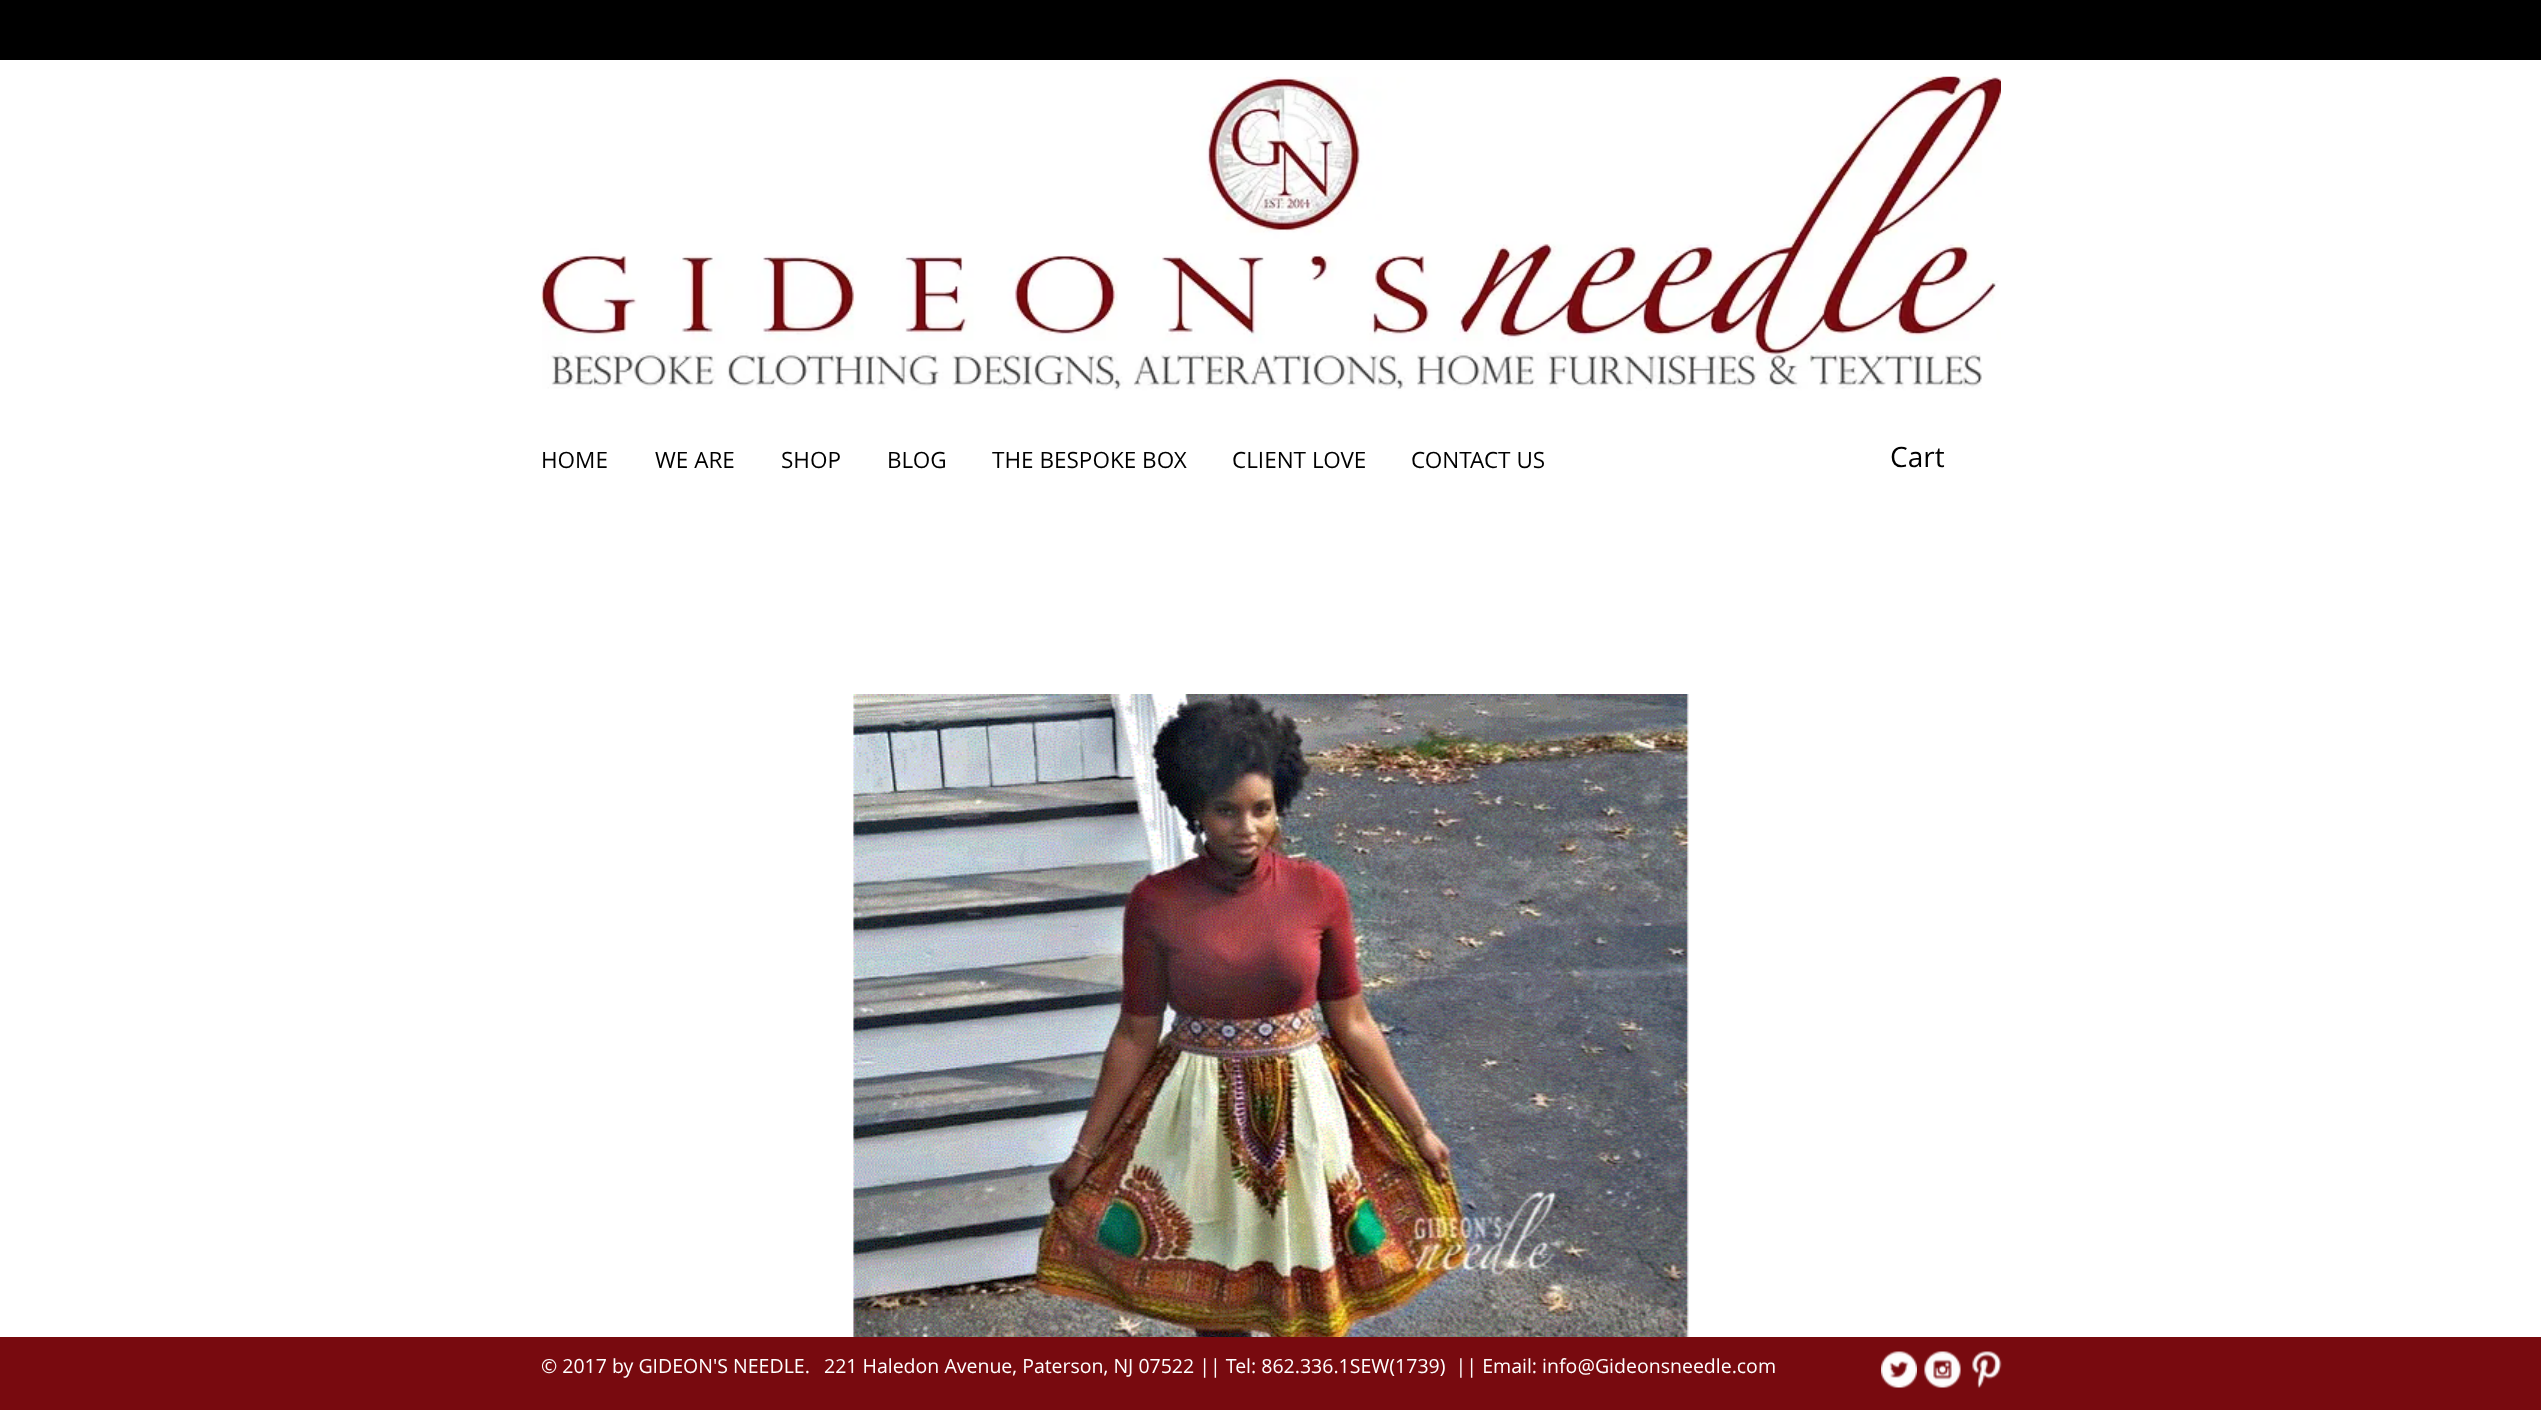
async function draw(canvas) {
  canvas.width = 2541;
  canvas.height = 1410;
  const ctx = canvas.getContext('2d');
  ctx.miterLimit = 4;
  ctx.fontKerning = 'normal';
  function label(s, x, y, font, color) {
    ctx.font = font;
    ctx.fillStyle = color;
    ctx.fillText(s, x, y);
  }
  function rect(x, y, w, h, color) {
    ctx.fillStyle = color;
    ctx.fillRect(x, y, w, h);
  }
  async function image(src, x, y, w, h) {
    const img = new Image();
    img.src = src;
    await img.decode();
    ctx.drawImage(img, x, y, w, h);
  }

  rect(0, 0, 2541, 1410, '#fff');
  rect(0, 0, 2541, 60, '#000');
  await image('assets/img1.png', 541, 76, 1460, 315);
  label('HOME', 541, 468, '22.5px Open Sans', '#000');
  label('WE ARE', 655, 468, '22.5px Open Sans', '#000');
  label('SHOP', 781, 468, '22.5px Open Sans', '#000');
  label('BLOG', 887, 468, '22.5px Open Sans', '#000');
  label('THE BESPOKE BOX', 992, 468, '22.5px Open Sans', '#000');
  label('CLIENT LOVE', 1232, 468, '22.5px Open Sans', '#000');
  label('CONTACT US', 1411, 468, '22.5px Open Sans', '#000');
  label('Cart', 1890, 467, '28px Open Sans', '#000');
  await image('assets/img2.png', 853, 694, 836, 643);
  rect(0, 1337, 2541, 73, '#780a0f');
  label('© 2017 by GIDEON\'S NEEDLE.', 541, 1373, '19.5px Open Sans', '#fff');
  label('221 Haledon Avenue, Paterson, NJ 07522 || Tel: 862.336.1SEW(1739)  || Email: info@Gideonsneedle.com', 824, 1373, '19.5px Open Sans', '#fff');
  await image('assets/img3.png', 1881, 1351, 36, 37);
  await image('assets/img4.png', 1924, 1351, 37, 37);
  await image('assets/img5.png', 1972, 1351, 30, 37);
}

draw(document.querySelector('canvas'));
